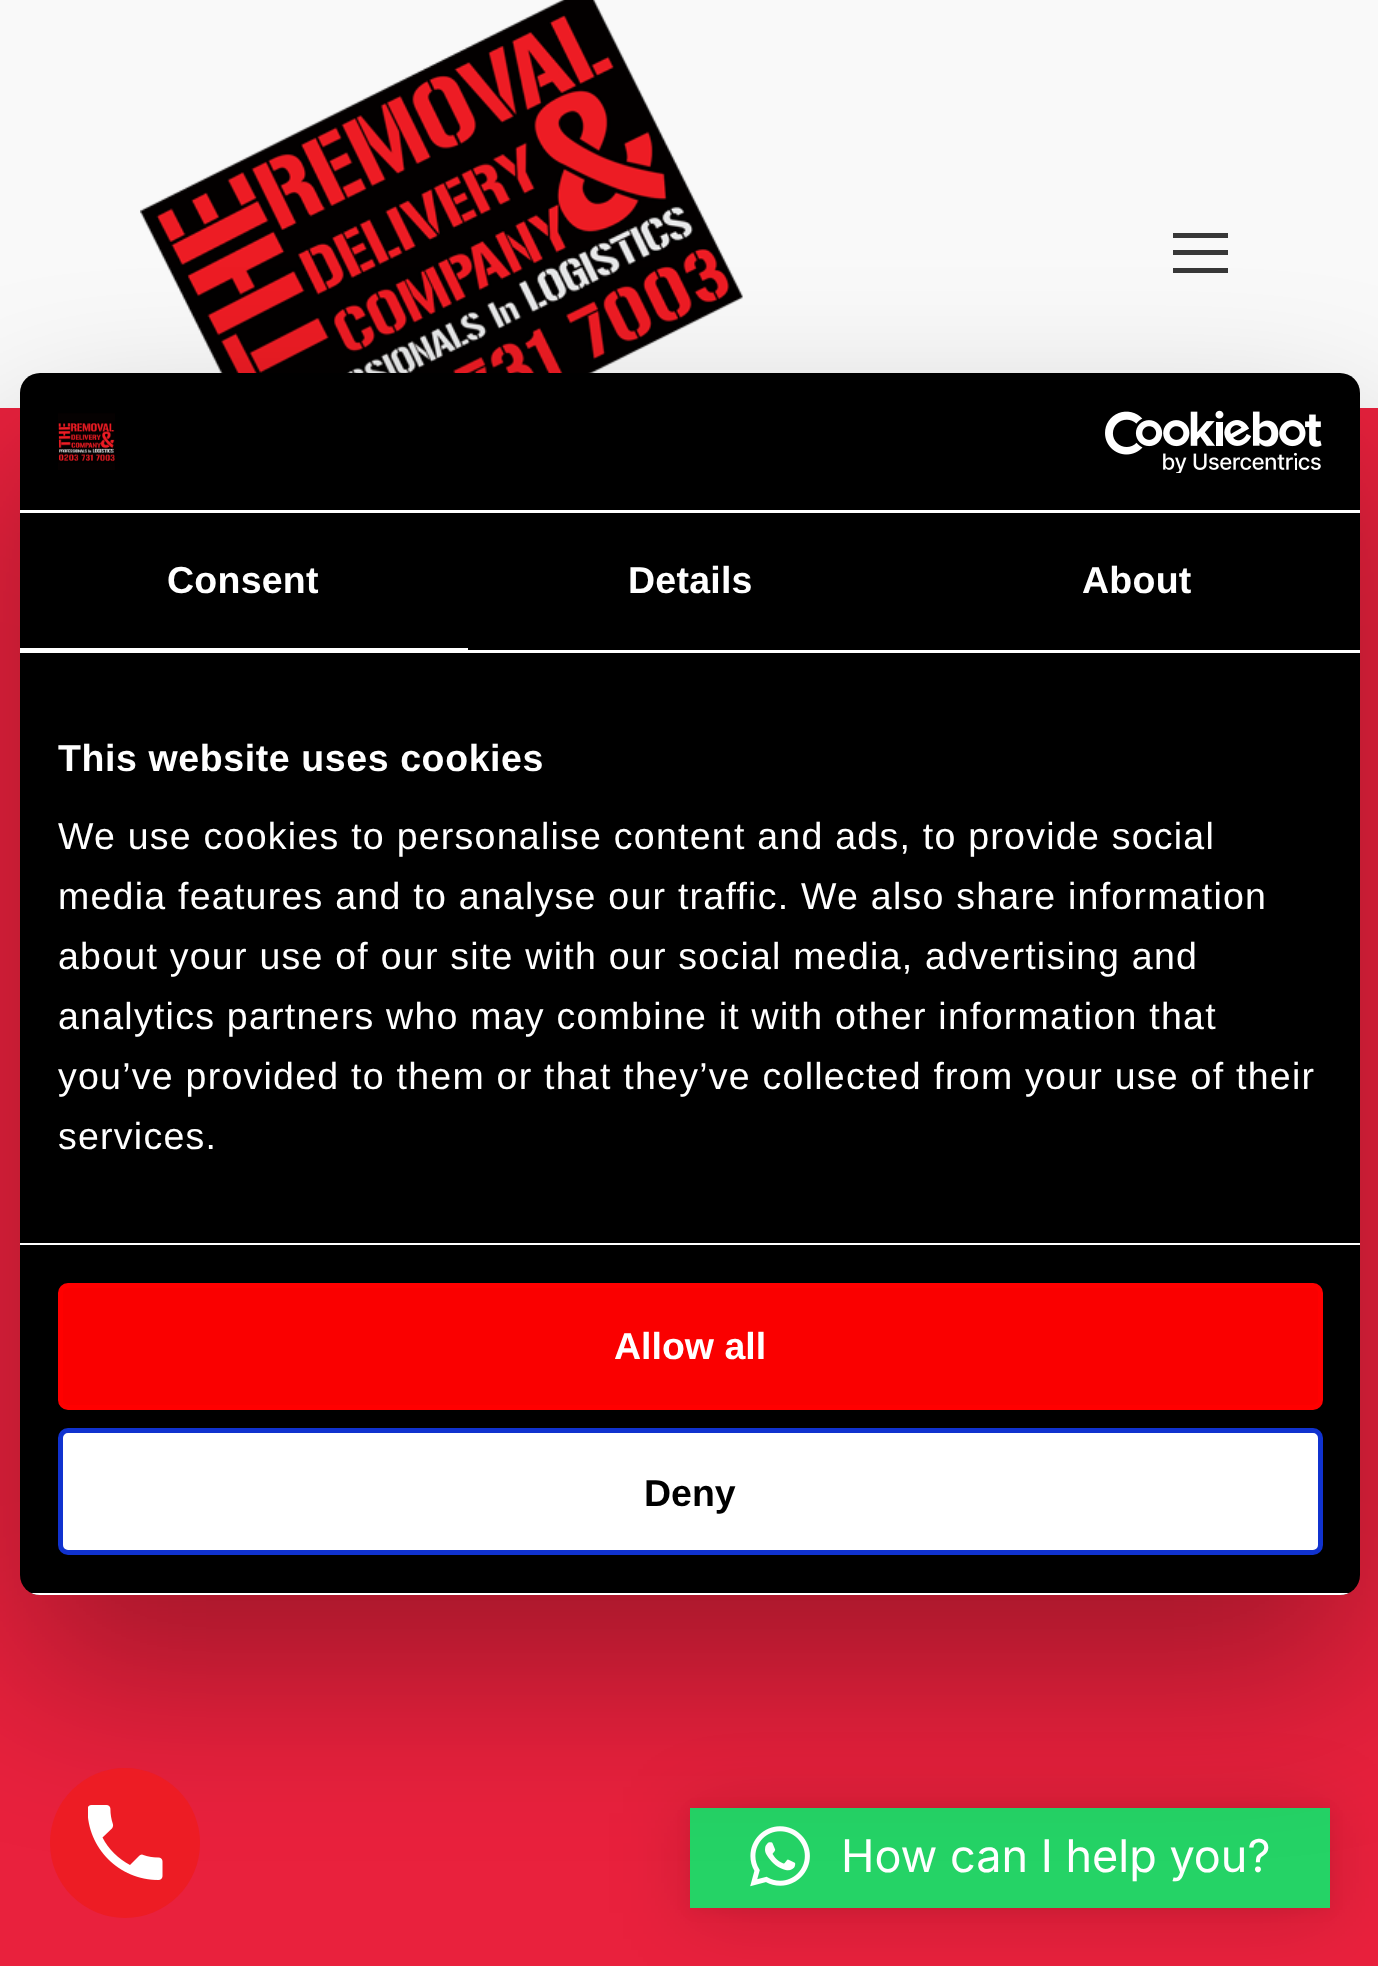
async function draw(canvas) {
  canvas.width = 1378;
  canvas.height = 1966;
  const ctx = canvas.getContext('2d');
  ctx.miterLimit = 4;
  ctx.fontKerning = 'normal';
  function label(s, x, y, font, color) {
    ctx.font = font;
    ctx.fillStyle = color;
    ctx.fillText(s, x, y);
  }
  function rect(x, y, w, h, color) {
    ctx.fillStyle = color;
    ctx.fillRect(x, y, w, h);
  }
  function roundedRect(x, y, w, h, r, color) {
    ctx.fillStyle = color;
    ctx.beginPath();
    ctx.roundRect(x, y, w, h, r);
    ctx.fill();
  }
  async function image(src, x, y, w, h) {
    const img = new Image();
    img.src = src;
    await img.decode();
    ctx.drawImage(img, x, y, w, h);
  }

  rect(0, 0, 1378, 1966, '#f9f9f9');
  await image('assets/img1.png', 140, 0, 603, 373);
  rect(1173, 233, 55, 5, '#383838');
  rect(1173, 250, 55, 5, '#383838');
  rect(1173, 268, 55, 5, '#383838');
  rect(0, 408, 1378, 1558, '#e9213d');
  ctx.fillStyle = '#00000029';
  ctx.filter = 'blur(40px)';
  ctx.beginPath();
  ctx.rect(690, 1813, 640, 100);
  ctx.fill();
  ctx.filter = 'none';
  ctx.fillStyle = '#0000000f';
  ctx.filter = 'blur(7.5px)';
  ctx.beginPath();
  ctx.rect(690, 1810, 640, 100);
  ctx.fill();
  ctx.filter = 'none';
  rect(690, 1808, 640, 100, '#25d366');
  await image('assets/img5.png', 750, 1826, 60, 61);
  ctx.fillStyle = '#0000004d';
  ctx.filter = 'blur(85px)';
  ctx.beginPath();
  ctx.roundRect(20, 453, 1340, 1222, 20);
  ctx.fill();
  ctx.filter = 'none';
  roundedRect(20, 373, 1340, 1222, 20, '#000');
  rect(20, 510, 1340, 3, '#fff');
  await image('assets/img2.png', 58, 413, 57, 57);
  await image('assets/img3.png', 1105, 410, 217, 63);
  rect(20, 650, 1340, 3, '#fff');
  rect(20, 648, 448, 2, '#fff');
  ctx.letterSpacing = '0.25px';
  label('Consent', 167, 593, 'bold 37.5px Liberation Sans', '#fff');
  label('Details', 628, 593, 'bold 37.5px Liberation Sans', '#fff');
  label('About', 1082, 593, 'bold 37.5px Liberation Sans', '#fff');
  rect(20, 1243, 1340, 2, '#fff');
  ctx.letterSpacing = '0.6px';
  label('This website uses cookies', 58, 771, 'bold 37.5px Liberation Sans', '#fff');
  ctx.letterSpacing = '1.25px';
  label('We use cookies to personalise content and ads, to provide social', 58, 849, '37.5px Liberation Sans', '#fff');
  label('media features and to analyse our traffic. We also share information', 58, 909, '37.5px Liberation Sans', '#fff');
  label('about your use of our site with our social media, advertising and', 58, 969, '37.5px Liberation Sans', '#fff');
  label('analytics partners who may combine it with other information that', 58, 1029, '37.5px Liberation Sans', '#fff');
  label('you’ve provided to them or that they’ve collected from your use of their', 58, 1089, '37.5px Liberation Sans', '#fff');
  label('services.', 58, 1149, '37.5px Liberation Sans', '#fff');
  ctx.save();
  ctx.beginPath();
  ctx.roundRect(20, 373, 1340, 1222, 20);
  ctx.clip();
  rect(31, 1593, 1318, 2, '#fff');
  ctx.restore();
  ctx.fillStyle = '#fa0000';
  ctx.beginPath();
  ctx.roundRect(60.5, 1285.5, 1260, 122, 7.5);
  ctx.fill();
  ctx.strokeStyle = '#f00';
  ctx.lineWidth = 5;
  ctx.stroke();
  ctx.letterSpacing = '0px';
  label('Allow all', 614, 1359, 'bold 37.5px Liberation Sans', '#fff');
  ctx.beginPath();
  ctx.roundRect(60.5, 1430.5, 1260, 122, 7.5);
  ctx.fill();
  ctx.strokeStyle = '#1032cf';
  ctx.stroke();
  label('Deny', 644, 1506, 'bold 37.5px Liberation Sans', '#000');
  ctx.fillStyle = '#ed1c24';
  ctx.beginPath();
  ctx.arc(125, 1843, 75, 0, 2 * Math.PI);
  ctx.fill();
  await image('assets/img4.png', 88, 1805, 75, 75);
  label('How can I help you?', 841, 1872, '45px Inter', '#fff');
}

draw(document.querySelector('canvas'));
